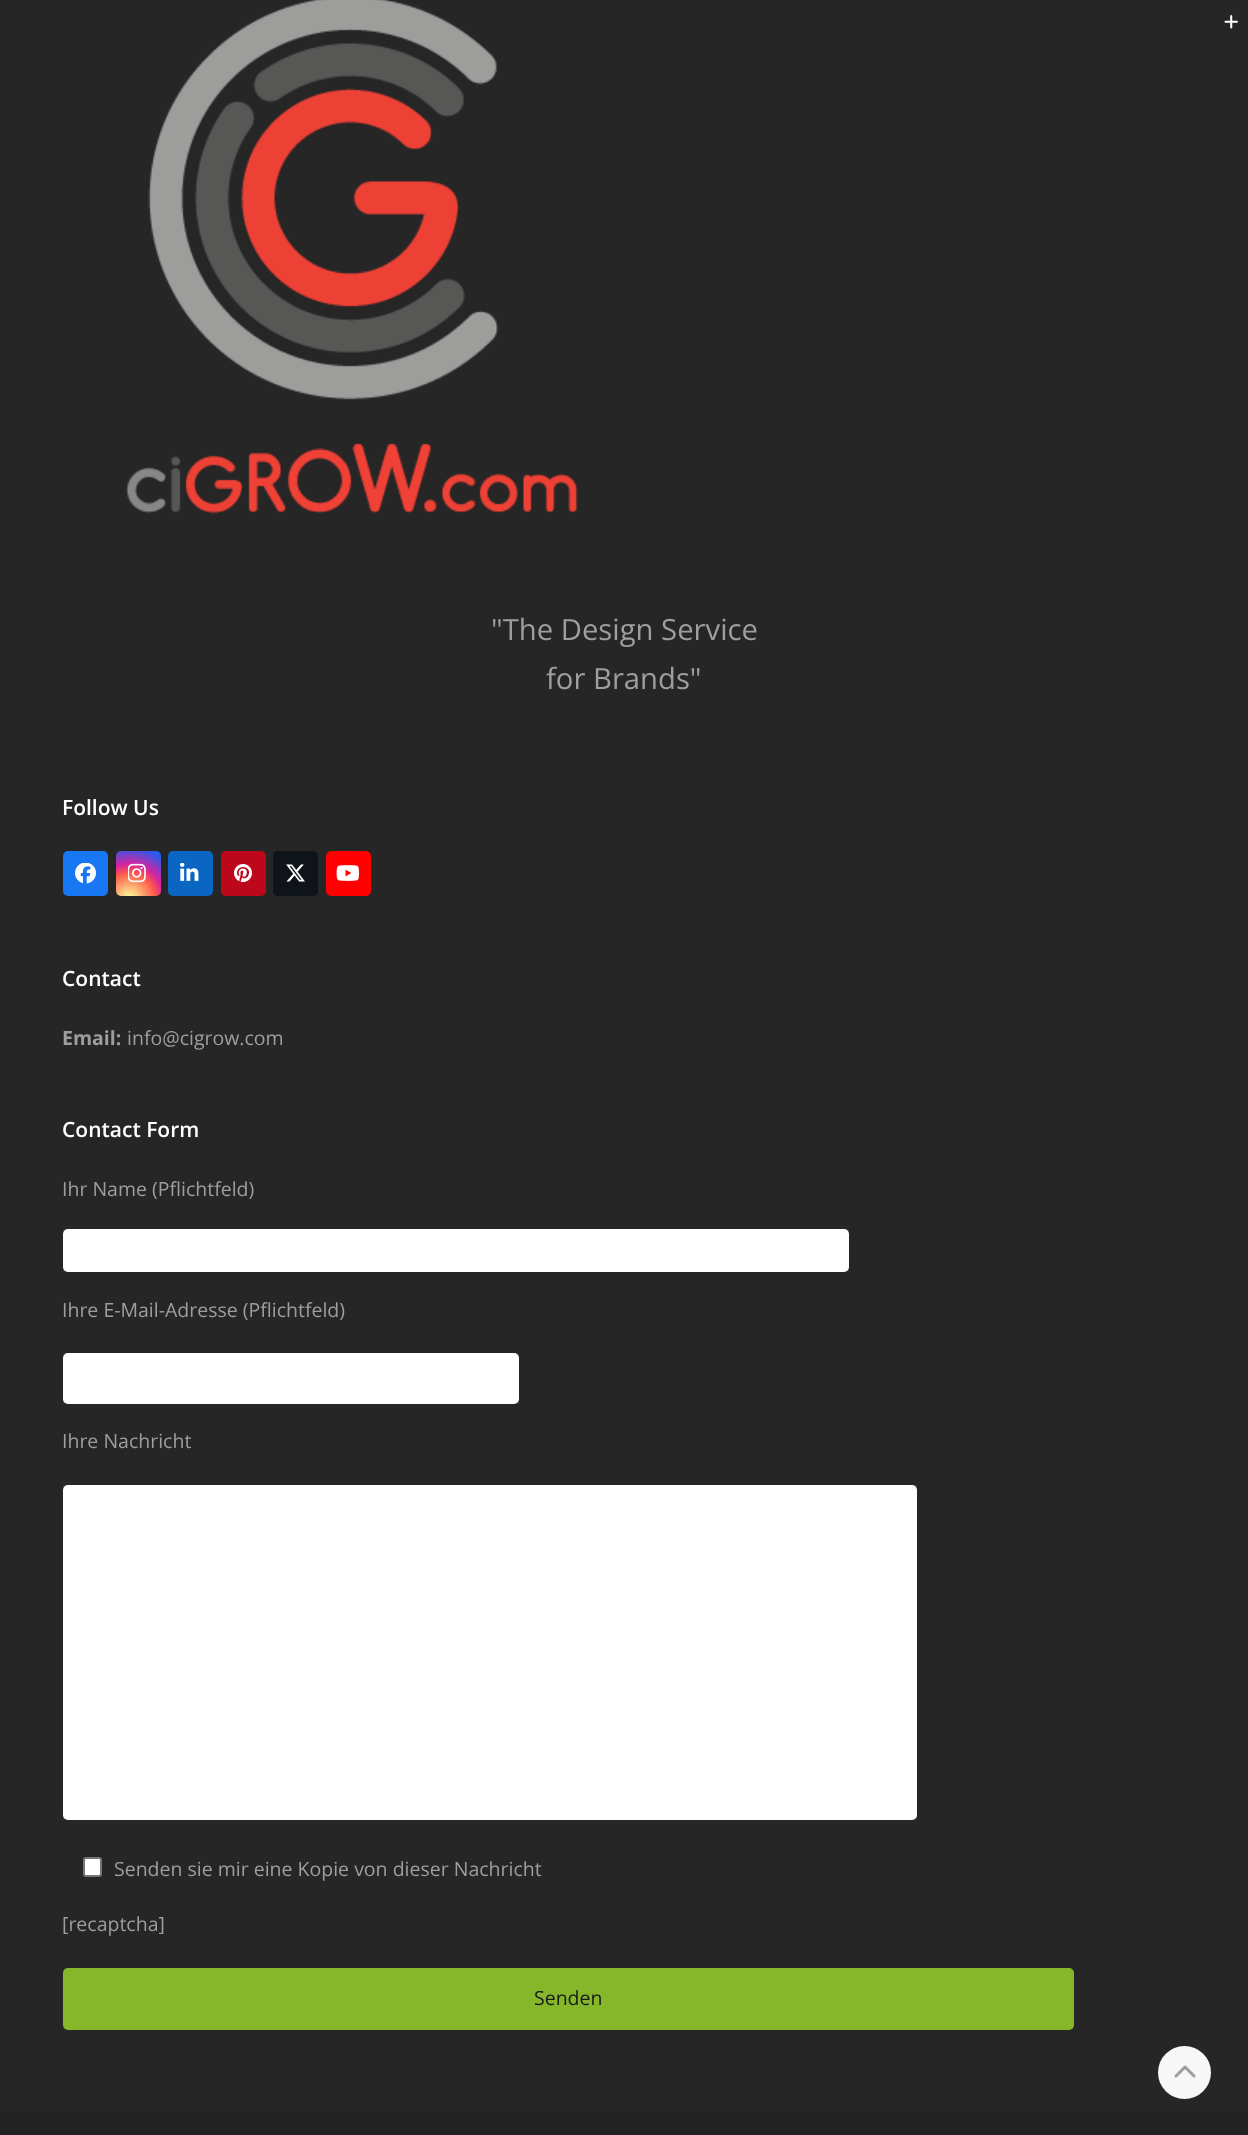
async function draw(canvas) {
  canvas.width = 1248;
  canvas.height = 2135;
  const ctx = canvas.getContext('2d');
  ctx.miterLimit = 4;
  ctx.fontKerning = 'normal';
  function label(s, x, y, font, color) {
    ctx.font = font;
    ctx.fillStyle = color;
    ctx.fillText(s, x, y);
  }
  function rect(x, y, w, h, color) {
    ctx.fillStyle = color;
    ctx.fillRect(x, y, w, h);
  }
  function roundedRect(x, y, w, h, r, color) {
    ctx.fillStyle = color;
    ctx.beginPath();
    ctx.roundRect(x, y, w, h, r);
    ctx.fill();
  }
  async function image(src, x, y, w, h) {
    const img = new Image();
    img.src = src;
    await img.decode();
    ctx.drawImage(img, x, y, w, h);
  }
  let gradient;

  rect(0, 0, 1248, 2135, '#262626');
  await image('assets/img1.png', 1224, 15, 14, 14);
  await image('assets/img2.png', 126, 0, 452, 514);
  label('"The Design Service', 491, 640, '29.25px Open Sans', '#9e9e9e');
  label('for Brands"', 546, 689, '29.25px Open Sans', '#9e9e9e');
  label('Follow Us', 62, 815, '600 21px Open Sans', '#fff');
  roundedRect(63, 851, 45, 45, 5, '#1877f2');
  await image('assets/img3.png', 75, 863, 21, 21);
  gradient = ctx.createRadialGradient(129, 899, 0, 129, 899, 58);
  gradient.addColorStop(0, '#fdf497');
  gradient.addColorStop(0.05, '#fdf497');
  gradient.addColorStop(0.45, '#fd5949');
  gradient.addColorStop(0.6, '#d6249f');
  gradient.addColorStop(0.9, '#285aeb');
  ctx.fillStyle = gradient;
  ctx.beginPath();
  ctx.roundRect(116, 851, 45, 45, 5);
  ctx.fill();
  await image('assets/img4.png', 128, 863, 18, 20);
  roundedRect(168, 851, 45, 45, 5, '#0a66c2');
  await image('assets/img5.png', 180, 863, 19, 18);
  roundedRect(221, 851, 45, 45, 5, '#bd081c');
  await image('assets/img6.png', 234, 864, 18, 18);
  roundedRect(273, 851, 45, 45, 5, '#0f141a');
  await image('assets/img7.png', 286, 864, 19, 18);
  roundedRect(326, 851, 45, 45, 5, '#f00');
  await image('assets/img8.png', 336, 865, 23, 16);
  label('Contact', 62, 986, '600 21px Open Sans', '#fff');
  label('Email:', 62, 1045, 'bold 19.5px Open Sans', '#9e9e9e');
  label('info@cigrow.com', 127, 1045, '19.5px Open Sans', '#9e9e9e');
  label('Contact Form', 62, 1137, '600 21px Open Sans', '#fff');
  label('Ihr Name (Pflichtfeld)', 62, 1196, '19.5px Open Sans', '#9e9e9e');
  roundedRect(63, 1229, 786, 43, 5, '#fff');
  ctx.strokeStyle = '#ffffff0f';
  ctx.lineWidth = 2;
  ctx.strokeRect(64, 1230, 784, 41);
  label('Ihre E-Mail-Adresse (Pflichtfeld)', 62, 1317, '19.5px Open Sans', '#9e9e9e');
  roundedRect(63, 1353, 456, 51, 5, '#fff');
  ctx.strokeRect(64, 1354, 454, 49);
  label('Ihre Nachricht', 62, 1448, '19.5px Open Sans', '#9e9e9e');
  roundedRect(63, 1485, 854, 335, 5, '#fff');
  ctx.strokeRect(64, 1486, 852, 333);
  ctx.beginPath();
  ctx.roundRect(84, 1858, 17, 18, 2);
  ctx.fill();
  ctx.strokeStyle = '#767676';
  ctx.stroke();
  label('Senden sie mir eine Kopie von dieser Nachricht', 114, 1876, '19.5px Open Sans', '#9e9e9e');
  label('[recaptcha]', 62, 1931, '19.5px Open Sans', '#9e9e9e');
  roundedRect(63, 1968, 1011, 62, 5, '#86b72a');
  label('Senden', 534, 2005, '19.5px Open Sans', '#191919');
  rect(0, 2112, 1248, 23, '#222');
  ctx.fillStyle = '#f7f7f7';
  ctx.beginPath();
  ctx.arc(1184.5, 2072.5, 26.5, 0, 2 * Math.PI);
  ctx.fill();
  await image('assets/img9.png', 1174, 2065, 22, 13);
}

draw(document.querySelector('canvas'));
